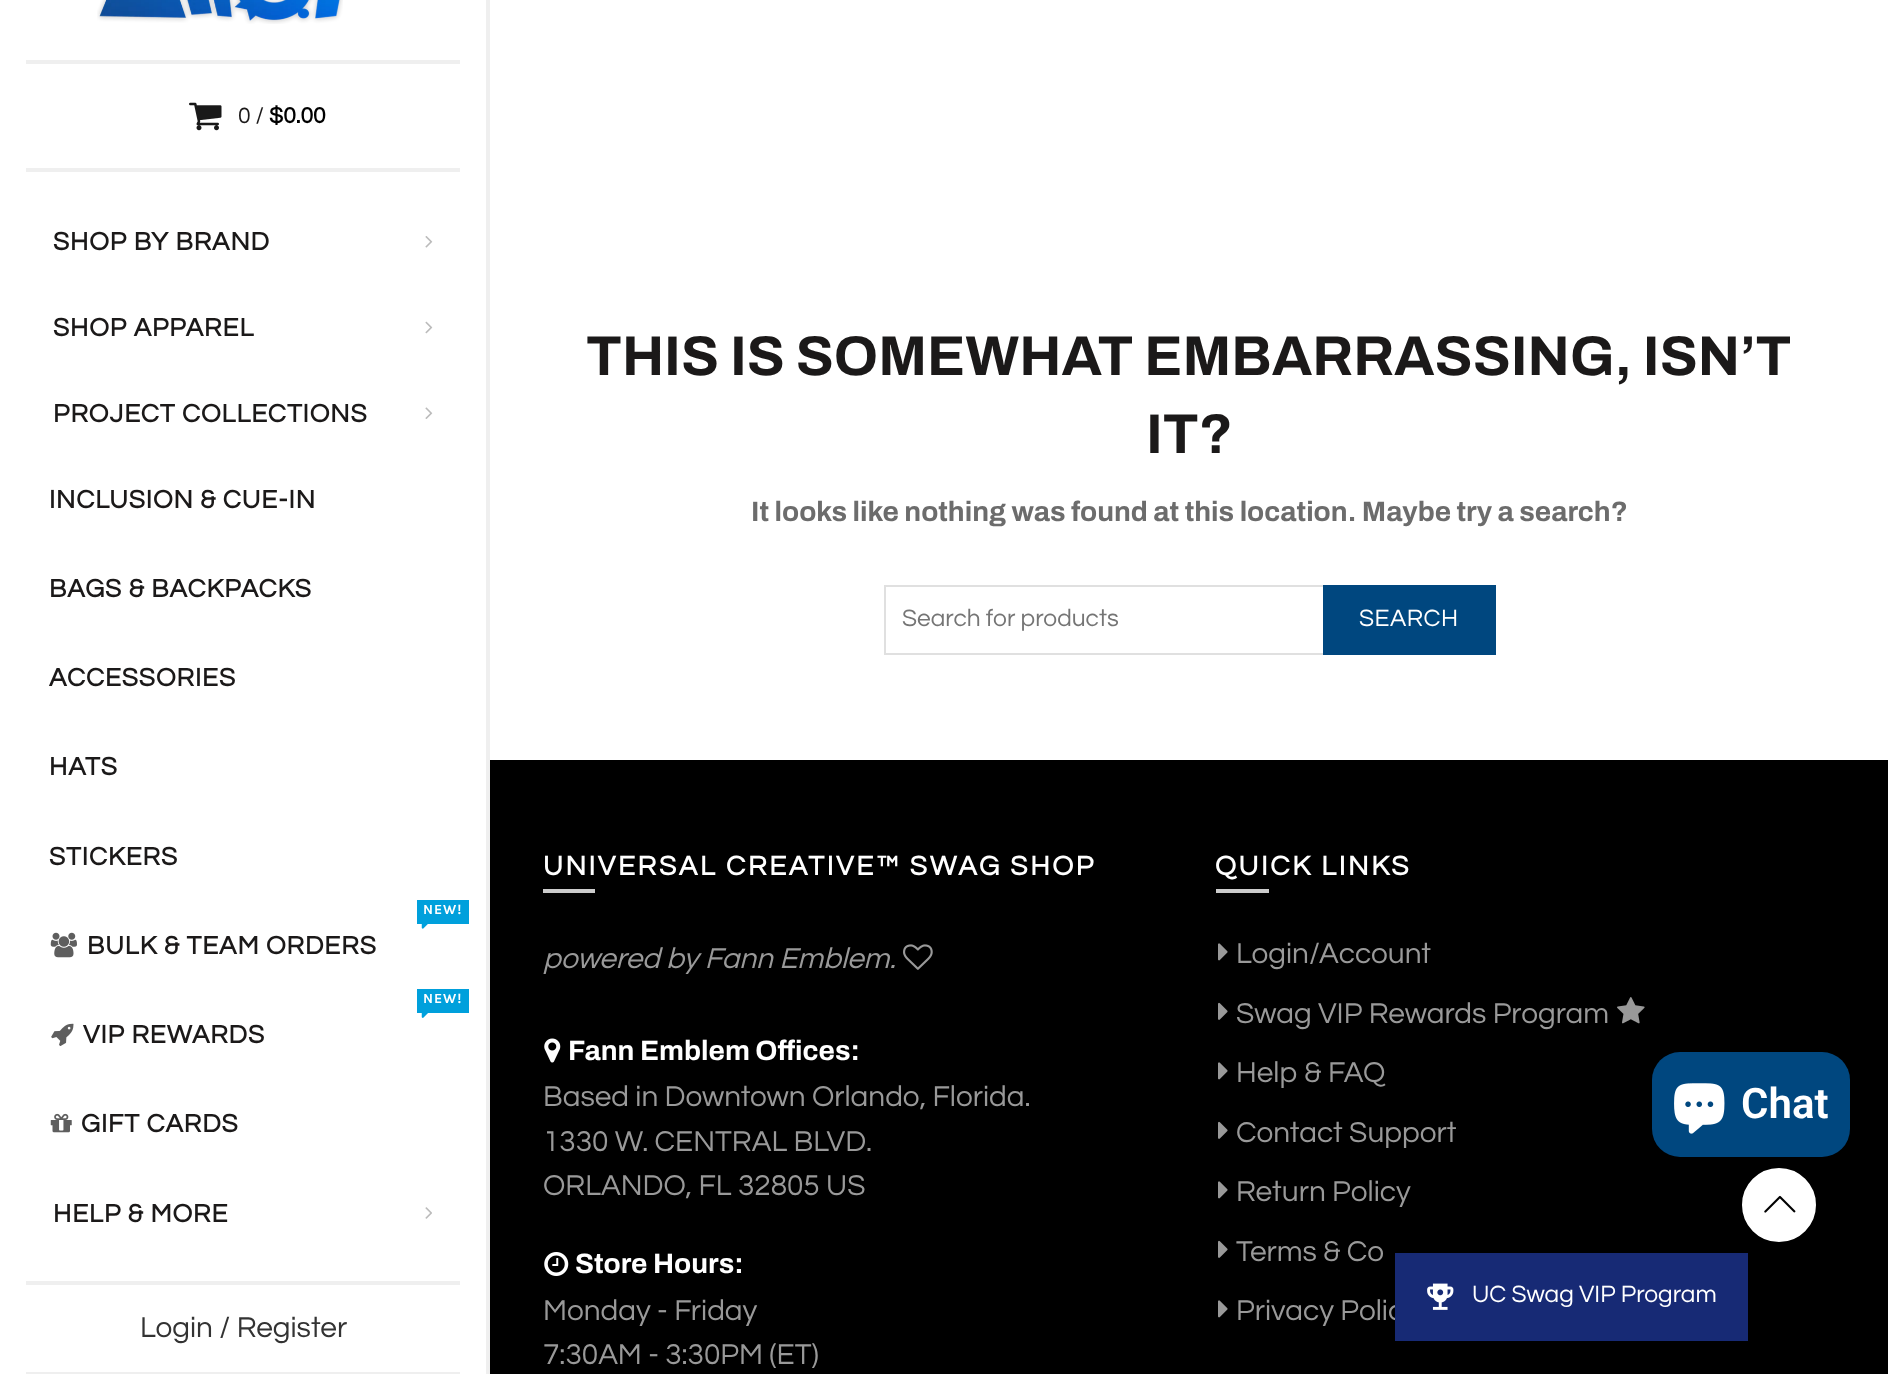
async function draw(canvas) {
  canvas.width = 1888;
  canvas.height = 1374;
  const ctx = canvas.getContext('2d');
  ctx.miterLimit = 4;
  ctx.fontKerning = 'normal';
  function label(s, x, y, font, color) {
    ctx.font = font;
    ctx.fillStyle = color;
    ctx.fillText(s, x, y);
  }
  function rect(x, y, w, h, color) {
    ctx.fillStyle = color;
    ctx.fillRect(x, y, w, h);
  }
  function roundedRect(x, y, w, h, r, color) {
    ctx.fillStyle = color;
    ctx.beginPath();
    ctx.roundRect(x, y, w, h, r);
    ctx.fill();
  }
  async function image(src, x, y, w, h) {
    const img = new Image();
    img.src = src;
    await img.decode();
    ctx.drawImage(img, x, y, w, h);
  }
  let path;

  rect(0, 0, 1888, 1374, '#fff');
  ctx.fillStyle = '#efefef';
  path = new Path2D('M490-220V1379L486 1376V-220Z');
  ctx.fill(path);
  await image('assets/img1.png', 97, 0, 246, 24);
  rect(26, 60, 434, 4, '#efefef');
  rect(26, 168, 434, 4, '#efefef');
  await image('assets/img2.png', 189, 102, 33, 29);
  label('0 /', 238, 123, '23px Questrial', '#1b1919');
  label('$0.00', 269, 123, 'bold 23px Questrial', '#000');
  ctx.letterSpacing = '0.9px';
  label('SHOP BY BRAND', 53, 250, 'bold 26.25px Questrial', '#1b1919');
  await image('assets/img3.png', 425, 236, 8, 12);
  label('SHOP APPAREL', 53, 336, 'bold 26.25px Questrial', '#1b1919');
  await image('assets/img4.png', 425, 321, 8, 13);
  label('PROJECT COLLECTIONS', 53, 422, 'bold 26.25px Questrial', '#1b1919');
  await image('assets/img5.png', 425, 407, 8, 12);
  label('INCLUSION & CUE-IN', 49, 508, 'bold 26.25px Questrial', '#1b1919');
  label('BAGS & BACKPACKS', 49, 597, 'bold 26.25px Questrial', '#1b1919');
  label('ACCESSORIES', 49, 686, 'bold 26.25px Questrial', '#1b1919');
  label('HATS', 49, 775, 'bold 26.25px Questrial', '#1b1919');
  label('STICKERS', 49, 865, 'bold 26.25px Questrial', '#1b1919');
  rect(417, 900, 52, 24, '#00a0dc');
  label('NEW!', 423, 914, 'bold 14px Karla', '#fff');
  await image('assets/img6.png', 421, 924, 7, 5);
  await image('assets/img7.png', 50, 932, 27, 26);
  label('BULK & TEAM ORDERS', 87, 954, 'bold 26.25px Questrial', '#1b1919');
  rect(417, 989, 52, 24, '#00a0dc');
  label('NEW!', 423, 1003, 'bold 14px Karla', '#fff');
  await image('assets/img8.png', 421, 1013, 7, 5);
  await image('assets/img9.png', 51, 1023, 23, 23);
  label('VIP REWARDS', 83, 1043, 'bold 26.25px Questrial', '#1b1919');
  await image('assets/img10.png', 50, 1113, 22, 20);
  label('GIFT CARDS', 81, 1132, 'bold 26.25px Questrial', '#1b1919');
  label('HELP & MORE', 53, 1222, 'bold 26.25px Questrial', '#1b1919');
  await image('assets/img11.png', 425, 1207, 7, 12);
  rect(26, 1281, 434, 4, '#efefef');
  rect(26, 1372, 434, 2, '#efefef');
  ctx.letterSpacing = '0px';
  label('Login / Register', 140, 1337, '29.75px Questrial', '#333');
  label('THIS IS SOMEWHAT EMBARRASSING, ISN’T', 586, 375, 'bold 56px Archivo', '#1b1919');
  label('IT?', 1146, 453, 'bold 56px Archivo', '#1b1919');
  label('It looks like nothing was found at this location. Maybe try a search?', 751, 521, 'bold 28px Archivo', '#6c6c6c');
  ctx.strokeStyle = '#e0e0e0';
  ctx.lineWidth = 2;
  ctx.strokeRect(885, 586, 610, 68);
  label('Search for products', 902, 626, '24.5px Questrial', '#757575');
  rect(1323, 585, 173, 70, '#00477f');
  ctx.letterSpacing = '0.5px';
  label('SEARCH', 1359, 626, '24.5px Questrial', '#fff');
  rect(490, 760, 1398, 614, '#000');
  ctx.letterSpacing = '2.6px';
  label('UNIVERSAL CREATIVE™ SWAG SHOP', 543, 875, 'bold 28px Questrial', '#fff');
  rect(543, 889, 52, 4, '#ccc');
  ctx.letterSpacing = '0px';
  label('powered by Fann Emblem.', 543, 968, 'italic 29.75px Questrial', '#999');
  await image('assets/img12.png', 903, 944, 30, 26);
  await image('assets/img13.png', 544, 1038, 17, 25);
  label('Fann Emblem Offices:', 568, 1060, 'bold 28px Archivo', '#fff');
  label('Based in Downtown Orlando, Florida.', 543, 1106, '29.75px Questrial', '#999');
  label('1330 W. CENTRAL BLVD.', 543, 1151, '29.75px Questrial', '#999');
  label('ORLANDO, FL 32805 US', 543, 1195, '29.75px Questrial', '#999');
  await image('assets/img14.png', 544, 1252, 25, 24);
  label('Store Hours:', 575, 1273, 'bold 28px Archivo', '#fff');
  label('Monday - Friday', 543, 1320, '29.75px Questrial', '#999');
  label('7:30AM - 3:30PM (ET)', 543, 1364, '29.75px Questrial', '#999');
  ctx.letterSpacing = '2.6px';
  label('QUICK LINKS', 1215, 875, 'bold 28px Questrial', '#fff');
  rect(1216, 889, 53, 4, '#ccc');
  await image('assets/img15.png', 1218, 943, 10, 18);
  ctx.letterSpacing = '0px';
  label('Login/Account', 1236, 963, '29.75px Questrial', '#999');
  await image('assets/img16.png', 1218, 1002, 10, 18);
  label('Swag VIP Rewards Program', 1236, 1023, '29.75px Questrial', '#999');
  await image('assets/img17.png', 1617, 997, 28, 27);
  await image('assets/img15.png', 1218, 1062, 10, 18);
  label('Help & FAQ', 1236, 1082, '29.75px Questrial', '#999');
  await image('assets/img16.png', 1218, 1121, 10, 18);
  label('Contact Support', 1236, 1142, '29.75px Questrial', '#999');
  await image('assets/img15.png', 1218, 1181, 10, 18);
  label('Return Policy', 1236, 1201, '29.75px Questrial', '#999');
  await image('assets/img16.png', 1218, 1240, 10, 18);
  label('Terms & Co', 1236, 1261, '29.75px Questrial', '#999');
  await image('assets/img15.png', 1218, 1300, 10, 18);
  label('Privacy Polic', 1236, 1320, '29.75px Questrial', '#999');
  roundedRect(1652, 1052, 198, 105, 28, '#00477f');
  await image('assets/img18.png', 1674, 1083, 51, 51);
  label('Chat', 1741, 1118, '600 42px Roboto', '#fff');
  ctx.beginPath();
  ctx.arc(1779, 1205, 38, 0, 2 * Math.PI);
  ctx.fill();
  ctx.strokeStyle = '#000';
  ctx.stroke();
  await image('assets/img19.png', 1764, 1195, 32, 18);
  rect(1395, 1253, 353, 88, '#172a75');
  await image('assets/img20.png', 1427, 1283, 27, 27);
  label('UC Swag VIP Program', 1472, 1302, '24.5px Questrial', '#fff');
}

draw(document.querySelector('canvas'));
